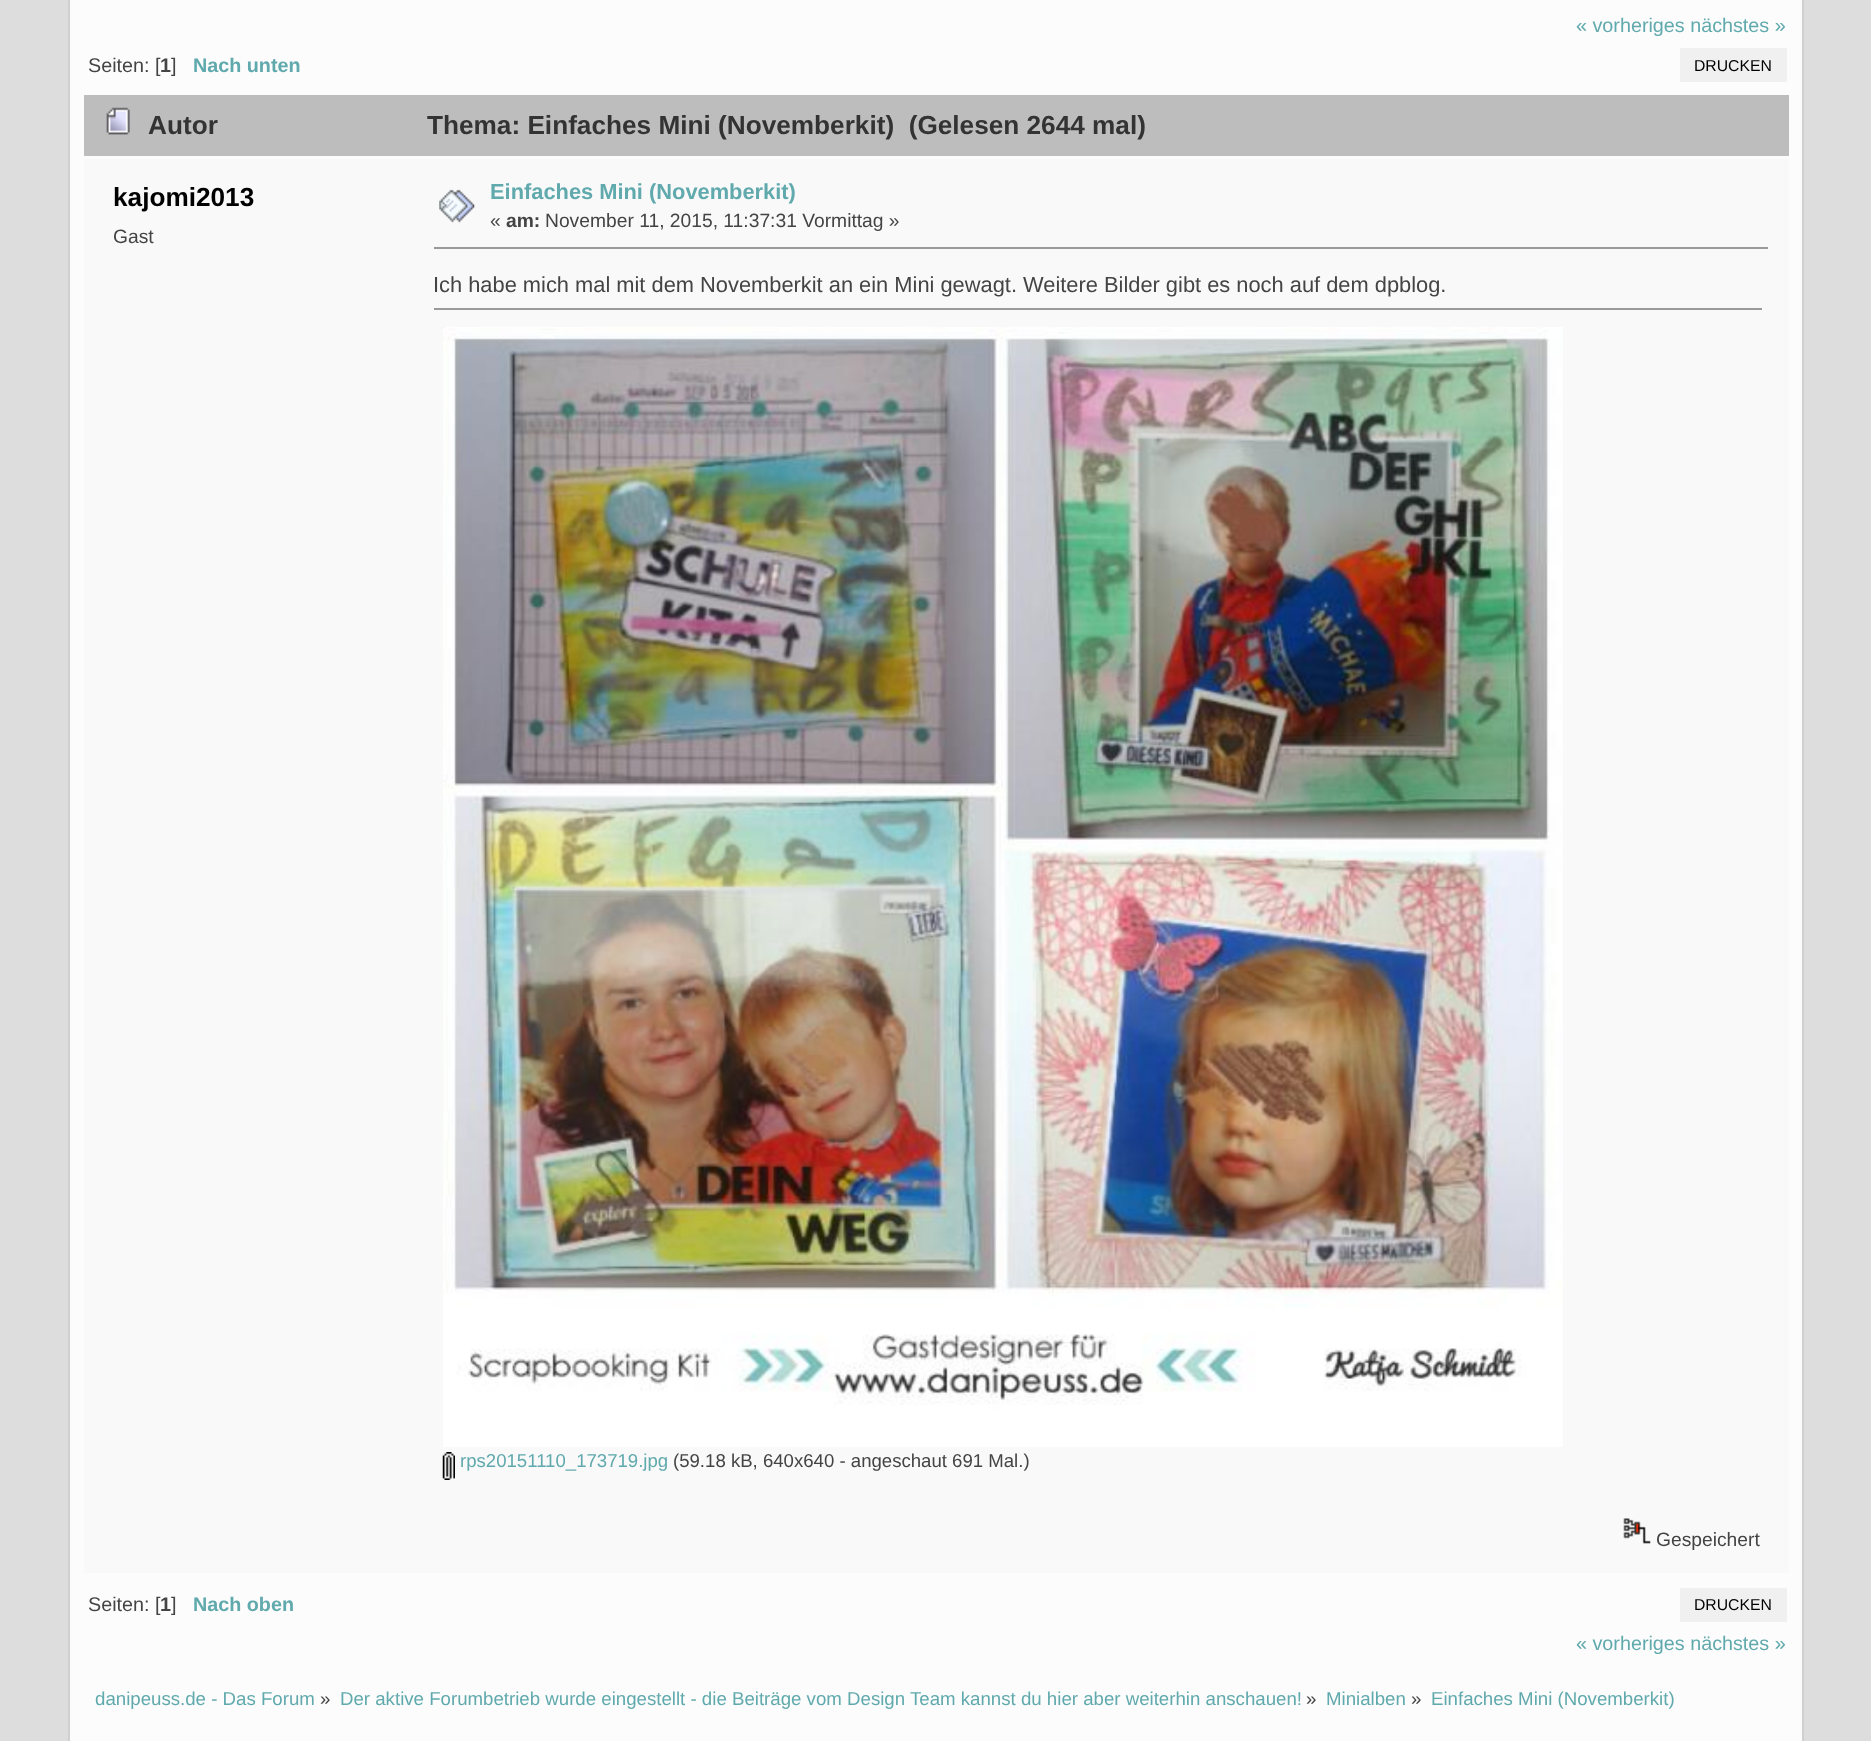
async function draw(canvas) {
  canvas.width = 1871;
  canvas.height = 1741;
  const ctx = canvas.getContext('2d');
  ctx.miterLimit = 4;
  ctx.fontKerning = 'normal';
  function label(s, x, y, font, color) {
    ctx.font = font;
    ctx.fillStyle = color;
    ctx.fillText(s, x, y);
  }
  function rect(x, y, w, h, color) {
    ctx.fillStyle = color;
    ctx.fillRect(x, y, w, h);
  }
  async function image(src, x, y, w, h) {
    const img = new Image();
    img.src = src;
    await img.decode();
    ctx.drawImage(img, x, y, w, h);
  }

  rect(0, 0, 1871, 1741, '#ddd');
  ctx.fillStyle = '#fcfcfc';
  ctx.beginPath();
  ctx.rect(69, -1, 1734, 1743);
  ctx.fill();
  ctx.strokeStyle = '#d0d0d0';
  ctx.lineWidth = 2;
  ctx.stroke();
  label('« vorheriges nächstes »', 1576, 32, '19.75px Liberation Sans', '#60a9ad');
  label('Seiten: [', 88, 72, '19.75px Liberation Sans', '#444');
  label('1', 160, 72, 'bold 19.75px Liberation Sans', '#444');
  label(']', 171, 72, '19.75px Liberation Sans', '#444');
  label('Nach unten', 193, 72, 'bold 19.75px Liberation Sans', '#60a9ad');
  rect(1680, 48, 107, 34, '#f0f0f0');
  label('DRUCKEN', 1694, 71, '15.75px Liberation Sans', '#000');
  rect(84, 95, 1705, 61, '#bdbdbd');
  await image('assets/img1.png', 106, 107, 24, 28);
  label('Autor', 148, 134, 'bold 26.2px Liberation Sans', '#333');
  label('Thema: Einfaches Mini (Novemberkit)  (Gelesen 2644 mal)', 427, 134, 'bold 26.2px Liberation Sans', '#333');
  rect(84, 159, 1705, 1414, '#f9f9f9');
  label('kajomi2013', 113, 206, 'bold 26.2px Liberation Sans', '#000');
  label('Gast', 113, 243, '19.25px Liberation Sans', '#444');
  await image('assets/img2.png', 439, 189, 36, 34);
  label('Einfaches Mini (Novemberkit)', 490, 199, 'bold 21.85px Liberation Sans', '#60a9ad');
  label('«', 490, 227, '19.25px Liberation Sans', '#444');
  label('am:', 506, 227, 'bold 19.25px Liberation Sans', '#444');
  label('November 11, 2015, 11:37:31 Vormittag »', 545, 227, '19.25px Liberation Sans', '#444');
  rect(434, 247, 1334, 2, '#999');
  label('Ich habe mich mal mit dem Novemberkit an ein Mini gewagt. Weitere Bilder gibt es noch auf dem dpblog.', 433, 292, '21.85px Liberation Sans', '#444');
  rect(434, 308, 1328, 2, '#999');
  await image('assets/img3.png', 443, 327, 1120, 1120);
  await image('assets/img4.png', 442, 1452, 13, 28);
  label('rps20151110_173719.jpg', 460, 1467, '18.6px Liberation Sans', '#60a9ad');
  label('(59.18 kB, 640x640 - angeschaut 691 Mal.)', 673, 1467, '18.6px Liberation Sans', '#444');
  await image('assets/img5.png', 1623, 1518, 28, 26);
  label('Gespeichert', 1656, 1546, '19.25px Liberation Sans', '#444');
  label('Seiten: [', 88, 1611, '19.75px Liberation Sans', '#444');
  label('1', 160, 1611, 'bold 19.75px Liberation Sans', '#444');
  label(']', 171, 1611, '19.75px Liberation Sans', '#444');
  label('Nach oben', 193, 1611, 'bold 19.75px Liberation Sans', '#60a9ad');
  rect(1680, 1588, 107, 34, '#f0f0f0');
  label('DRUCKEN', 1694, 1610, '15.75px Liberation Sans', '#000');
  label('« vorheriges nächstes »', 1576, 1650, '19.75px Liberation Sans', '#60a9ad');
  label('danipeuss.de - Das Forum', 95, 1705, '18.67px Liberation Sans', '#60a9ad');
  label('»', 320, 1705, '18.67px Liberation Sans', '#444');
  label('Der aktive Forumbetrieb wurde eingestellt - die Beiträge vom Design Team kannst du hier aber weiterhin anschauen!', 340, 1705, '18.67px Liberation Sans', '#60a9ad');
  label('»', 1306, 1705, '18.67px Liberation Sans', '#444');
  label('Minialben', 1326, 1705, '18.67px Liberation Sans', '#60a9ad');
  label('»', 1411, 1705, '18.67px Liberation Sans', '#444');
  label('Einfaches Mini (Novemberkit)', 1431, 1705, '18.67px Liberation Sans', '#60a9ad');
}

draw(document.querySelector('canvas'));
